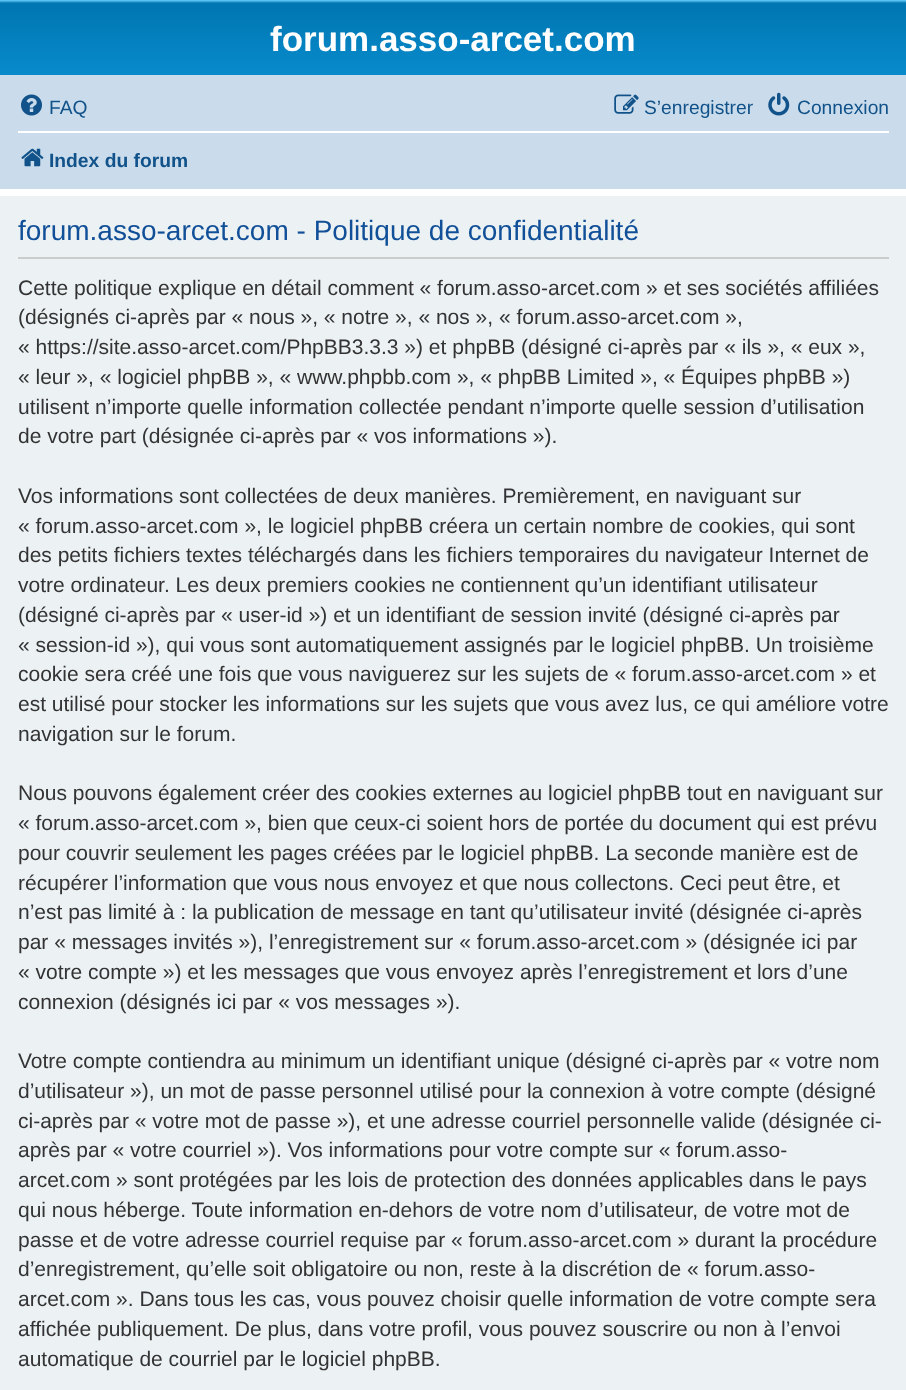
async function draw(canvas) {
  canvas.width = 906;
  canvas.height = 1390;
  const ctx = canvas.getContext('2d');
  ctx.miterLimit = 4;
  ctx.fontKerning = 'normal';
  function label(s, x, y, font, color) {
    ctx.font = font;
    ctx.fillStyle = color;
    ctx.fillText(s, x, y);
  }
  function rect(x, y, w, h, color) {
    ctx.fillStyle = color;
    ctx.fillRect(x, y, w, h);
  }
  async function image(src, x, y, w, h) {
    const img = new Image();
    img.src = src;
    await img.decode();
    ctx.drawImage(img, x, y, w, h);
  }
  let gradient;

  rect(0, 0, 906, 1390, '#fff');
  gradient = ctx.createLinearGradient(453, 0, 453, 161);
  gradient.addColorStop(0, '#6aceff');
  gradient.addColorStop(0.02, '#0076b1');
  gradient.addColorStop(1, '#12a3eb');
  ctx.fillStyle = gradient;
  ctx.fillRect(0, 0, 906, 75);
  label('forum.asso-arcet.com', 270, 51, 'bold 35px Liberation Sans', '#fff');
  rect(0, 75, 906, 114, '#cadceb');
  await image('assets/img1.png', 21, 94, 21, 22);
  label('FAQ', 49, 114, '19.25px Liberation Sans', '#105289');
  await image('assets/img2.png', 614, 94, 25, 20);
  label('S’enregistrer', 644, 114, '19.25px Liberation Sans', '#105289');
  await image('assets/img3.png', 768, 92, 22, 24);
  label('Connexion', 797, 114, '19.25px Liberation Sans', '#105289');
  rect(18, 131, 871, 2, '#fff');
  await image('assets/img4.png', 21, 148, 23, 19);
  label('Index du forum', 49, 167, 'bold 19.25px Liberation Sans', '#105289');
  rect(0, 196, 906, 1194, '#ecf1f3');
  rect(18, 257, 871, 2, '#ccc');
  label('forum.asso-arcet.com - Politique de confidentialité', 18, 240, '28px Liberation Sans', '#115098');
  label('Cette politique explique en détail comment « forum.asso-arcet.com » et ses sociétés affiliées', 18, 295, '21px Liberation Sans', '#333');
  label('(désignés ci-après par « nous », « notre », « nos », « forum.asso-arcet.com »,', 18, 324, '21px Liberation Sans', '#333');
  label('« https://site.asso-arcet.com/PhpBB3.3.3 ») et phpBB (désigné ci-après par « ils », « eux »,', 18, 354, '21px Liberation Sans', '#333');
  label('« leur », « logiciel phpBB », « www.phpbb.com », « phpBB Limited », « Équipes phpBB »)', 18, 384, '21px Liberation Sans', '#333');
  label('utilisent n’importe quelle information collectée pendant n’importe quelle session d’utilisation', 18, 414, '21px Liberation Sans', '#333');
  label('de votre part (désignée ci-après par « vos informations »).', 18, 443, '21px Liberation Sans', '#333');
  label('Vos informations sont collectées de deux manières. Premièrement, en naviguant sur', 18, 503, '21px Liberation Sans', '#333');
  label('« forum.asso-arcet.com », le logiciel phpBB créera un certain nombre de cookies, qui sont', 18, 533, '21px Liberation Sans', '#333');
  label('des petits fichiers textes téléchargés dans les fichiers temporaires du navigateur Internet de', 18, 562, '21px Liberation Sans', '#333');
  label('votre ordinateur. Les deux premiers cookies ne contiennent qu’un identifiant utilisateur', 18, 592, '21px Liberation Sans', '#333');
  label('(désigné ci-après par « user-id ») et un identifiant de session invité (désigné ci-après par', 18, 622, '21px Liberation Sans', '#333');
  label('« session-id »), qui vous sont automatiquement assignés par le logiciel phpBB. Un troisième', 18, 652, '21px Liberation Sans', '#333');
  label('cookie sera créé une fois que vous naviguerez sur les sujets de « forum.asso-arcet.com » et', 18, 681, '21px Liberation Sans', '#333');
  label('est utilisé pour stocker les informations sur les sujets que vous avez lus, ce qui améliore votre', 18, 711, '21px Liberation Sans', '#333');
  label('navigation sur le forum.', 18, 741, '21px Liberation Sans', '#333');
  label('Nous pouvons également créer des cookies externes au logiciel phpBB tout en naviguant sur', 18, 800, '21px Liberation Sans', '#333');
  label('« forum.asso-arcet.com », bien que ceux-ci soient hors de portée du document qui est prévu', 18, 830, '21px Liberation Sans', '#333');
  label('pour couvrir seulement les pages créées par le logiciel phpBB. La seconde manière est de', 18, 860, '21px Liberation Sans', '#333');
  label('récupérer l’information que vous nous envoyez et que nous collectons. Ceci peut être, et', 18, 890, '21px Liberation Sans', '#333');
  label('n’est pas limité à : la publication de message en tant qu’utilisateur invité (désignée ci-après', 18, 919, '21px Liberation Sans', '#333');
  label('par « messages invités »), l’enregistrement sur « forum.asso-arcet.com » (désignée ici par', 18, 949, '21px Liberation Sans', '#333');
  label('« votre compte ») et les messages que vous envoyez après l’enregistrement et lors d’une', 18, 979, '21px Liberation Sans', '#333');
  label('connexion (désignés ici par « vos messages »).', 18, 1009, '21px Liberation Sans', '#333');
  label('Votre compte contiendra au minimum un identifiant unique (désigné ci-après par « votre nom', 18, 1068, '21px Liberation Sans', '#333');
  label('d’utilisateur »), un mot de passe personnel utilisé pour la connexion à votre compte (désigné', 18, 1098, '21px Liberation Sans', '#333');
  label('ci-après par « votre mot de passe »), et une adresse courriel personnelle valide (désignée ci-', 18, 1128, '21px Liberation Sans', '#333');
  label('après par « votre courriel »). Vos informations pour votre compte sur « forum.asso-', 18, 1157, '21px Liberation Sans', '#333');
  label('arcet.com » sont protégées par les lois de protection des données applicables dans le pays', 18, 1187, '21px Liberation Sans', '#333');
  label('qui nous héberge. Toute information en-dehors de votre nom d’utilisateur, de votre mot de', 18, 1217, '21px Liberation Sans', '#333');
  label('passe et de votre adresse courriel requise par « forum.asso-arcet.com » durant la procédure', 18, 1247, '21px Liberation Sans', '#333');
  label('d’enregistrement, qu’elle soit obligatoire ou non, reste à la discrétion de « forum.asso-', 18, 1276, '21px Liberation Sans', '#333');
  label('arcet.com ». Dans tous les cas, vous pouvez choisir quelle information de votre compte sera', 18, 1306, '21px Liberation Sans', '#333');
  label('affichée publiquement. De plus, dans votre profil, vous pouvez souscrire ou non à l’envoi', 18, 1336, '21px Liberation Sans', '#333');
  label('automatique de courriel par le logiciel phpBB.', 18, 1366, '21px Liberation Sans', '#333');
}

draw(document.querySelector('canvas'));
